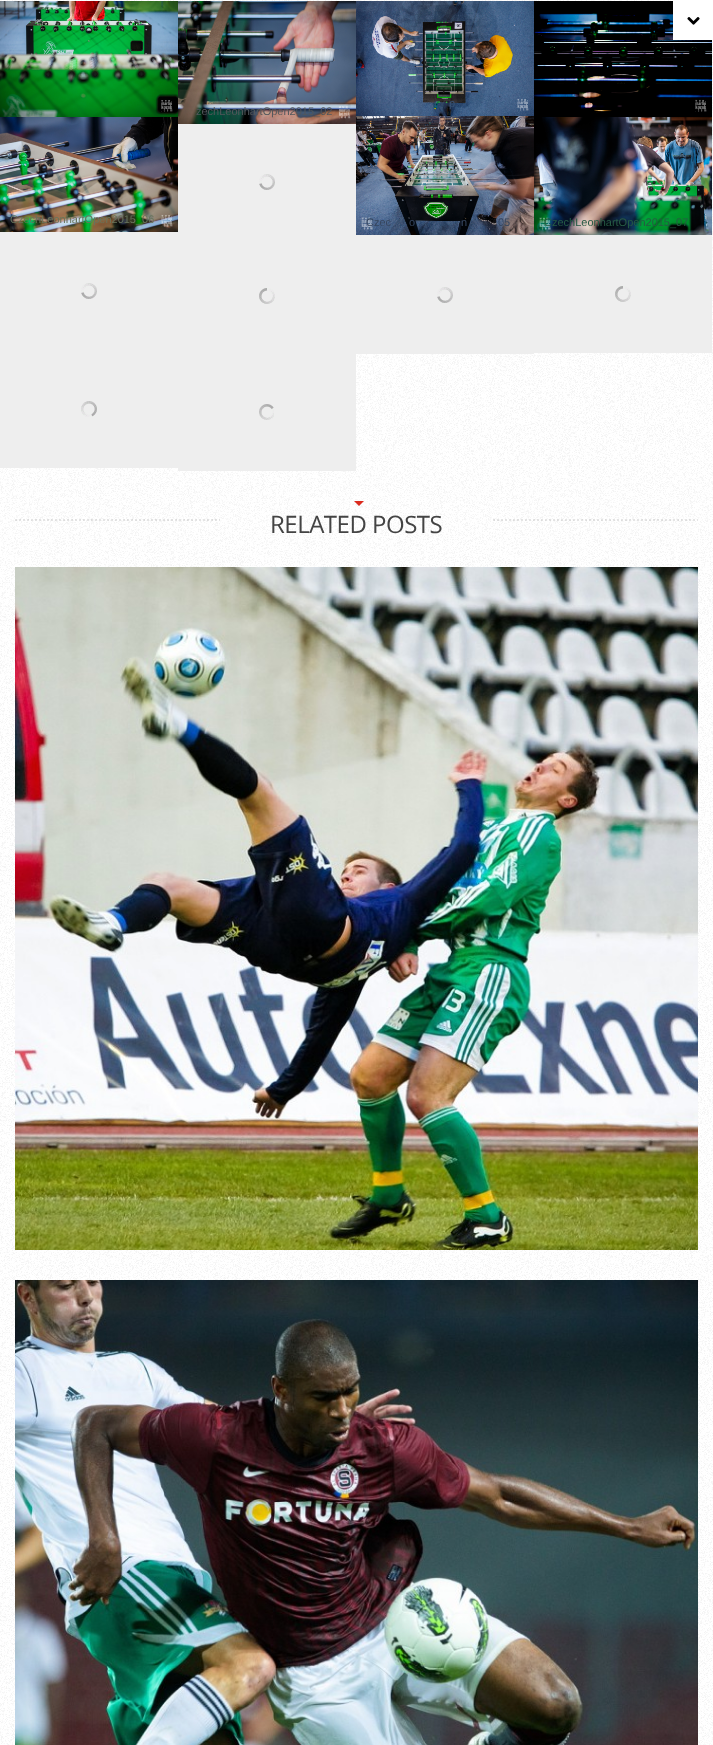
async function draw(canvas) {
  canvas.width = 713;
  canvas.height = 1745;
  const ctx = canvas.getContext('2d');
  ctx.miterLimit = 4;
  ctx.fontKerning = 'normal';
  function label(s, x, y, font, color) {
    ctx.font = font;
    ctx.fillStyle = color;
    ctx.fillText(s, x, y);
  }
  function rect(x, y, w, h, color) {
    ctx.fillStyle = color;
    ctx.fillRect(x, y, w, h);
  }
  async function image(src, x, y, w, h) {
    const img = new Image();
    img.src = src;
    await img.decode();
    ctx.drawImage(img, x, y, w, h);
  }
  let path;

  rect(0, 0, 713, 1745, '#fff');
  await image('assets/img1.png', 0, 0, 713, 1745);
  await image('assets/img5.png', 534, 1, 178, 116);
  rect(673, 0, 40, 40, '#fff');
  await image('assets/img2.png', 687, 17, 13, 8);
  await image('assets/img3.png', 0, 1, 178, 116);
  await image('assets/img4.png', 356, 1, 178, 115);
  label('r', 434, 107, '11px Liberation Sans', '#3b5576');
  label('p', 449, 107, '11px Liberation Sans', '#3b5576');
  await image('assets/img6.png', 178, 1, 178, 123);
  label('zechLeonhartOpen2015_02', 196, 115, '11px Liberation Sans', '#52575b');
  await image('assets/img7.png', 0, 117, 178, 115);
  label('CzechLeonhartOpen2015_06', 10, 223, '11px Liberation Sans', '#68745b');
  rect(178, 124, 178, 347, '#eee');
  await image('assets/img8.png', 259, 174, 16, 16);
  await image('assets/img9.png', 356, 116, 178, 119);
  label('Czec', 366, 226, '11px Liberation Sans', '#36465e');
  label('o', 409, 226, '11px Liberation Sans', '#36465e');
  label('n', 461, 226, '11px Liberation Sans', '#36465e');
  label('05', 498, 226, '11px Liberation Sans', '#36465e');
  await image('assets/img10.png', 534, 117, 178, 118);
  label('CzechLeonhartOpen2015_07', 544, 226, '11px Liberation Sans', '#265a44');
  rect(0, 232, 178, 236, '#eee');
  await image('assets/img8.png', 81, 283, 16, 16);
  await image('assets/img11.png', 259, 288, 16, 16);
  rect(356, 235, 178, 119, '#eee');
  await image('assets/img8.png', 437, 287, 16, 16);
  rect(534, 235, 178, 118, '#eee');
  await image('assets/img11.png', 615, 286, 16, 16);
  await image('assets/img12.png', 81, 401, 16, 16);
  await image('assets/img13.png', 259, 404, 15, 16);
  path = new Path2D('M15 520H220');
  ctx.strokeStyle = '#0000001a';
  ctx.lineWidth = 2;
  ctx.setLineDash([2, 2]);
  ctx.stroke(path);
  ctx.fillStyle = '#db2b1e';
  path = new Path2D('M354 501H364L359 506Z');
  ctx.fill(path);
  ctx.letterSpacing = '-0.5px';
  label('RELATED POSTS', 270, 533, '24px Open Sans', '#444');
  path = new Path2D('M493 520H698');
  ctx.stroke(path);
  await image('assets/img14.png', 15, 567, 683, 683);
  await image('assets/img15.png', 15, 1280, 683, 465);
}

draw(document.querySelector('canvas'));
